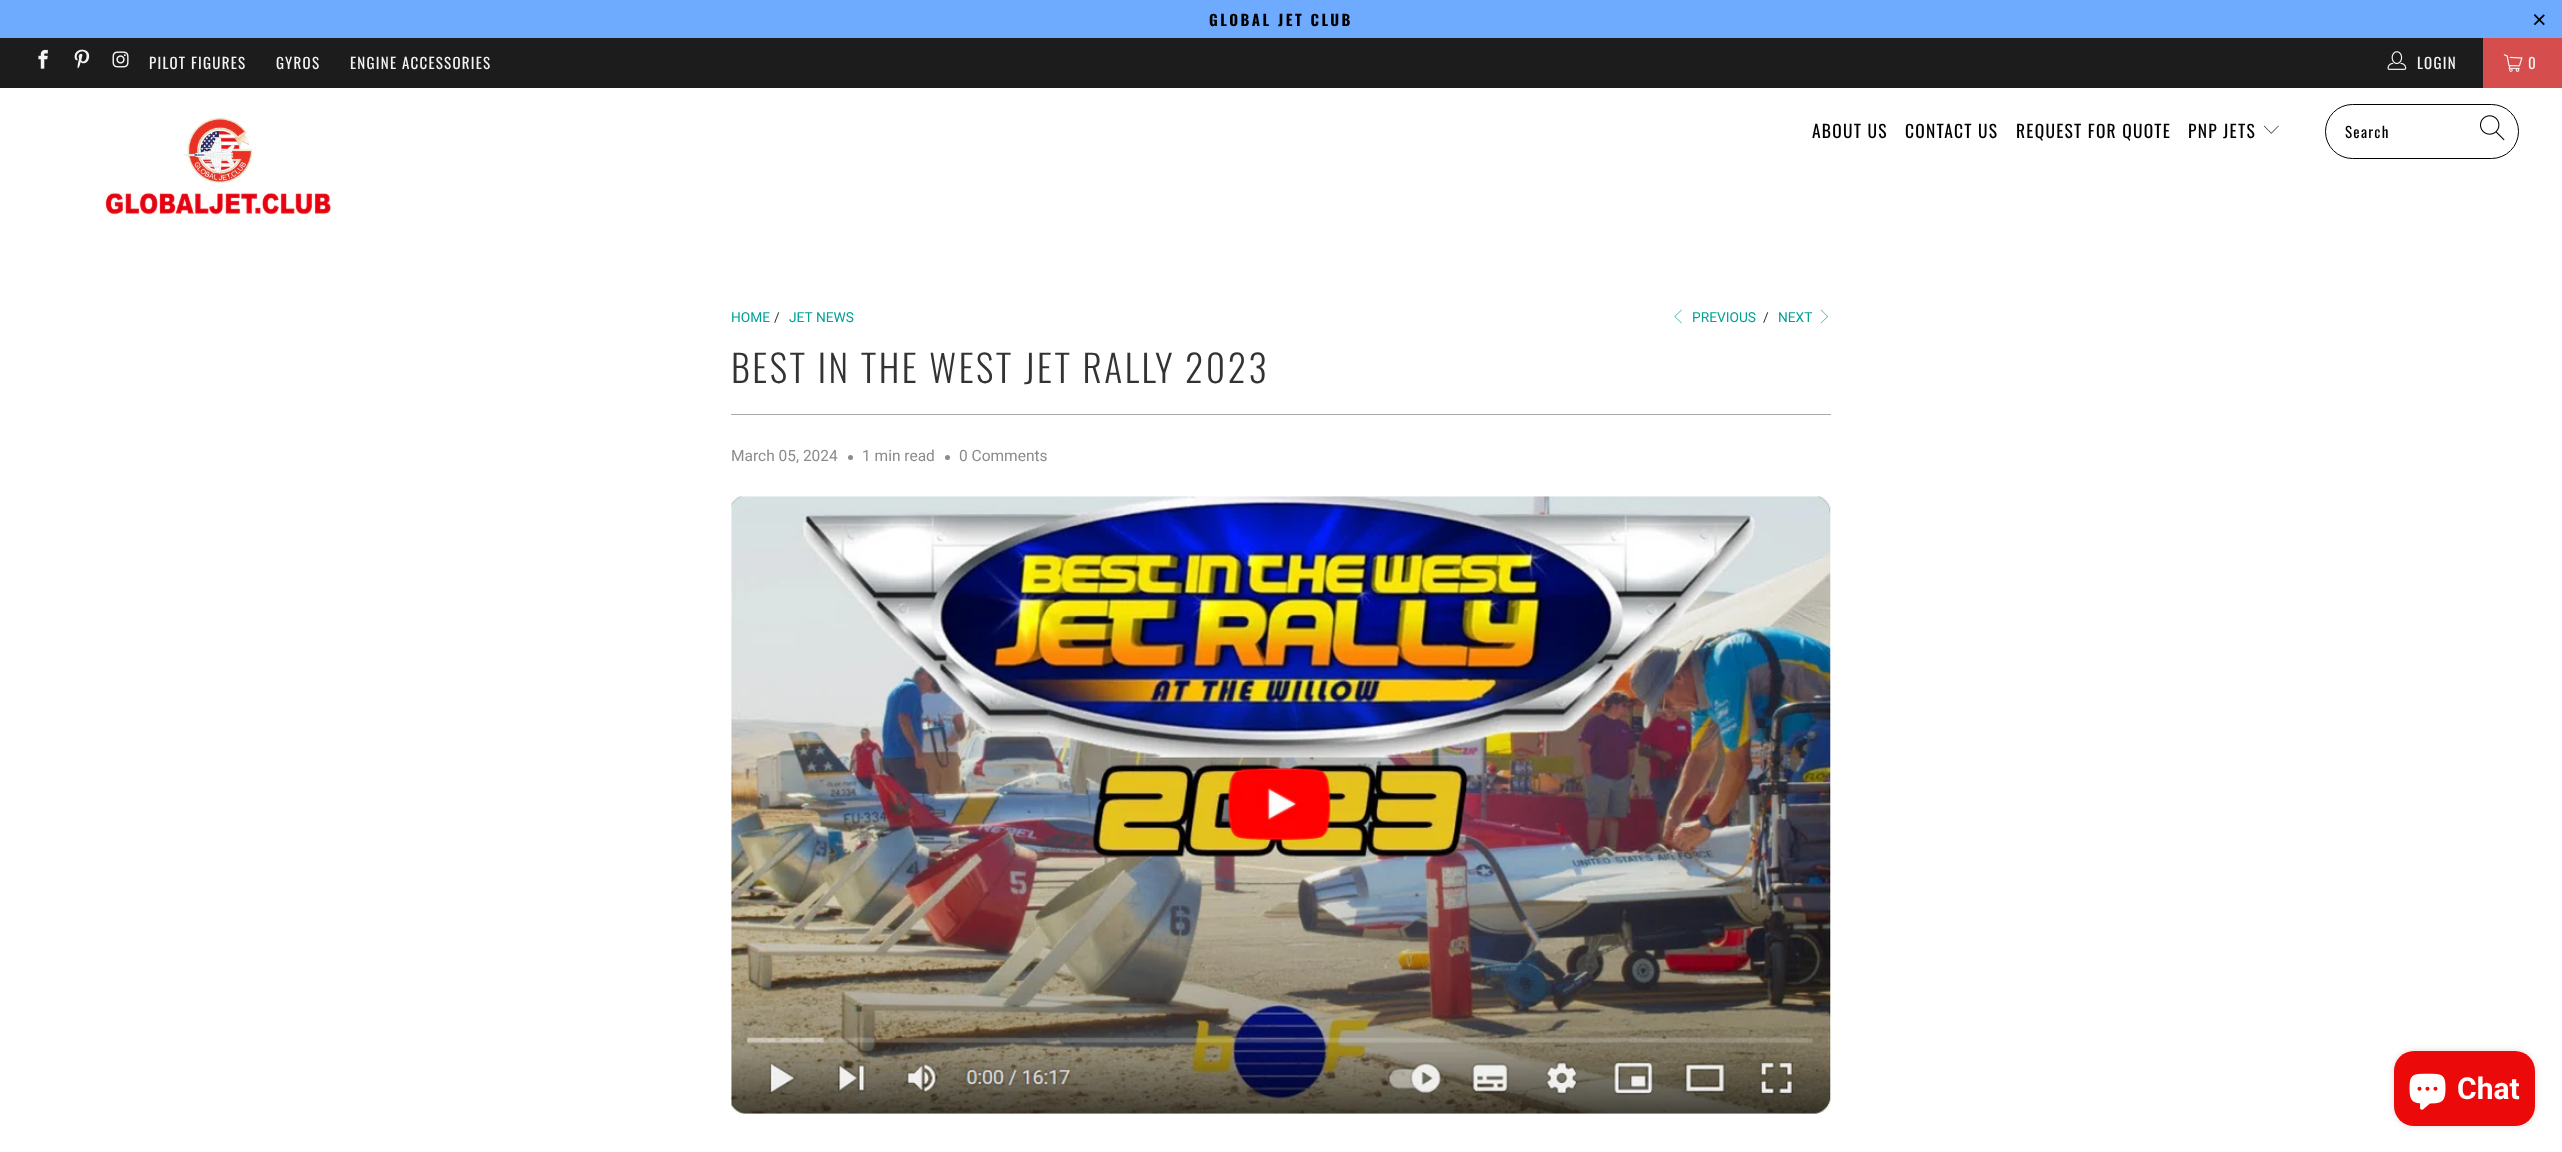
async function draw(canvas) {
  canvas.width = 2562;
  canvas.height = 1152;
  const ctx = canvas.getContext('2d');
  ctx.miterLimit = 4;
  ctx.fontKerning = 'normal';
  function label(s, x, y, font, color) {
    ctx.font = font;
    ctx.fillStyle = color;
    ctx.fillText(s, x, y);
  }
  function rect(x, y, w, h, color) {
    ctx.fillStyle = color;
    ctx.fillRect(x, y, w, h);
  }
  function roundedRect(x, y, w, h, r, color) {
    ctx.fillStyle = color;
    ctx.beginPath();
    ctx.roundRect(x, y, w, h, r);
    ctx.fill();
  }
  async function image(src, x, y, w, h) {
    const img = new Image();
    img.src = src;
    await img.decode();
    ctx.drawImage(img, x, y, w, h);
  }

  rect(0, 0, 2562, 1152, '#fff');
  rect(0, 0, 2562, 38, '#6eabff');
  ctx.letterSpacing = '2.5px';
  label('GLOBAL JET CLUB', 1209, 26, 'bold 15px Oswald', '#000');
  label('×', 2532, 28, '25px Liberation Sans', '#000');
  rect(0, 38, 2483, 50, '#1c1c1c');
  await image('assets/img1.png', 38, 49, 10, 20);
  await image('assets/img2.png', 74, 49, 16, 20);
  await image('assets/img3.png', 112, 51, 17, 17);
  ctx.letterSpacing = '1.25px';
  label('PILOT FIGURES', 149, 69, '15px Oswald', '#f4f4f4');
  label('GYROS', 276, 69, '15px Oswald', '#f4f4f4');
  label('ENGINE ACCESSORIES', 350, 69, '15px Oswald', '#f4f4f4');
  await image('assets/img4.png', 2387, 51, 20, 19);
  label('LOGIN', 2417, 69, '15px Oswald', '#f4f4f4');
  rect(2483, 38, 79, 50, '#d54d4d');
  await image('assets/img5.png', 2503, 54, 20, 18);
  label('0', 2528, 69, '15px Oswald', '#f4f4f4');
  await image('assets/img6.png', 105, 116, 226, 101);
  label('ABOUT US', 1812, 138, '17.5px Oswald', '#000');
  label('CONTACT US', 1905, 138, '17.5px Oswald', '#000');
  label('REQUEST FOR QUOTE', 2016, 138, '17.5px Oswald', '#000');
  label('PNP JETS', 2188, 138, '17.5px Oswald', '#000');
  await image('assets/img7.png', 2263, 125, 16, 9);
  ctx.beginPath();
  ctx.roundRect(2325.5, 104.5, 193, 54, 27);
  ctx.strokeStyle = '#000';
  ctx.stroke();
  label('Search', 2345, 138, '15px Oswald', '#000');
  await image('assets/img8.png', 2480, 115, 25, 26);
  ctx.letterSpacing = '0px';
  label('HOME', 731, 322, '13.75px Roboto', '#03a196');
  label('/', 774, 322, '13.75px Roboto', '#333');
  label('JET NEWS', 789, 322, '13.75px Roboto', '#03a196');
  await image('assets/img9.png', 1674, 309, 8, 15);
  label('PREVIOUS', 1692, 322, '13.75px Roboto', '#03a196');
  label('/', 1763, 322, '13.75px Roboto', '#333');
  label('NEXT', 1778, 322, '13.75px Roboto', '#03a196');
  await image('assets/img10.png', 1820, 309, 8, 15);
  ctx.letterSpacing = '2.5px';
  label('BEST IN THE WEST JET RALLY 2023', 731, 383, '300 37.5px Oswald', '#333');
  rect(731, 414, 1100, 1, '#aaa');
  ctx.letterSpacing = '0px';
  label('March 05, 2024', 731, 461, '15.5px Roboto', '#8c8b8b');
  ctx.beginPath();
  ctx.arc(850.5, 457.5, 2.5, 0, 2 * Math.PI);
  ctx.fill();
  label('1 min read', 862, 461, '15.5px Roboto', '#8c8b8b');
  ctx.beginPath();
  ctx.arc(947.5, 457.5, 2.5, 0, 2 * Math.PI);
  ctx.fill();
  label('0 Comments', 959, 461, '15.5px Roboto', '#8c8b8b');
  await image('assets/img11.png', 731, 496, 1100, 618);
  ctx.fillStyle = '#00000026';
  ctx.filter = 'blur(3px)';
  ctx.beginPath();
  ctx.roundRect(2394, 1051, 141, 75, 20);
  ctx.fill();
  ctx.filter = 'none';
  roundedRect(2394, 1051, 141, 75, 20, '#ec0909');
  await image('assets/img12.png', 2409, 1073, 37, 37);
  label('Chat', 2457, 1099, 'bold 30px Roboto', '#fff');
}

draw(document.querySelector('canvas'));
